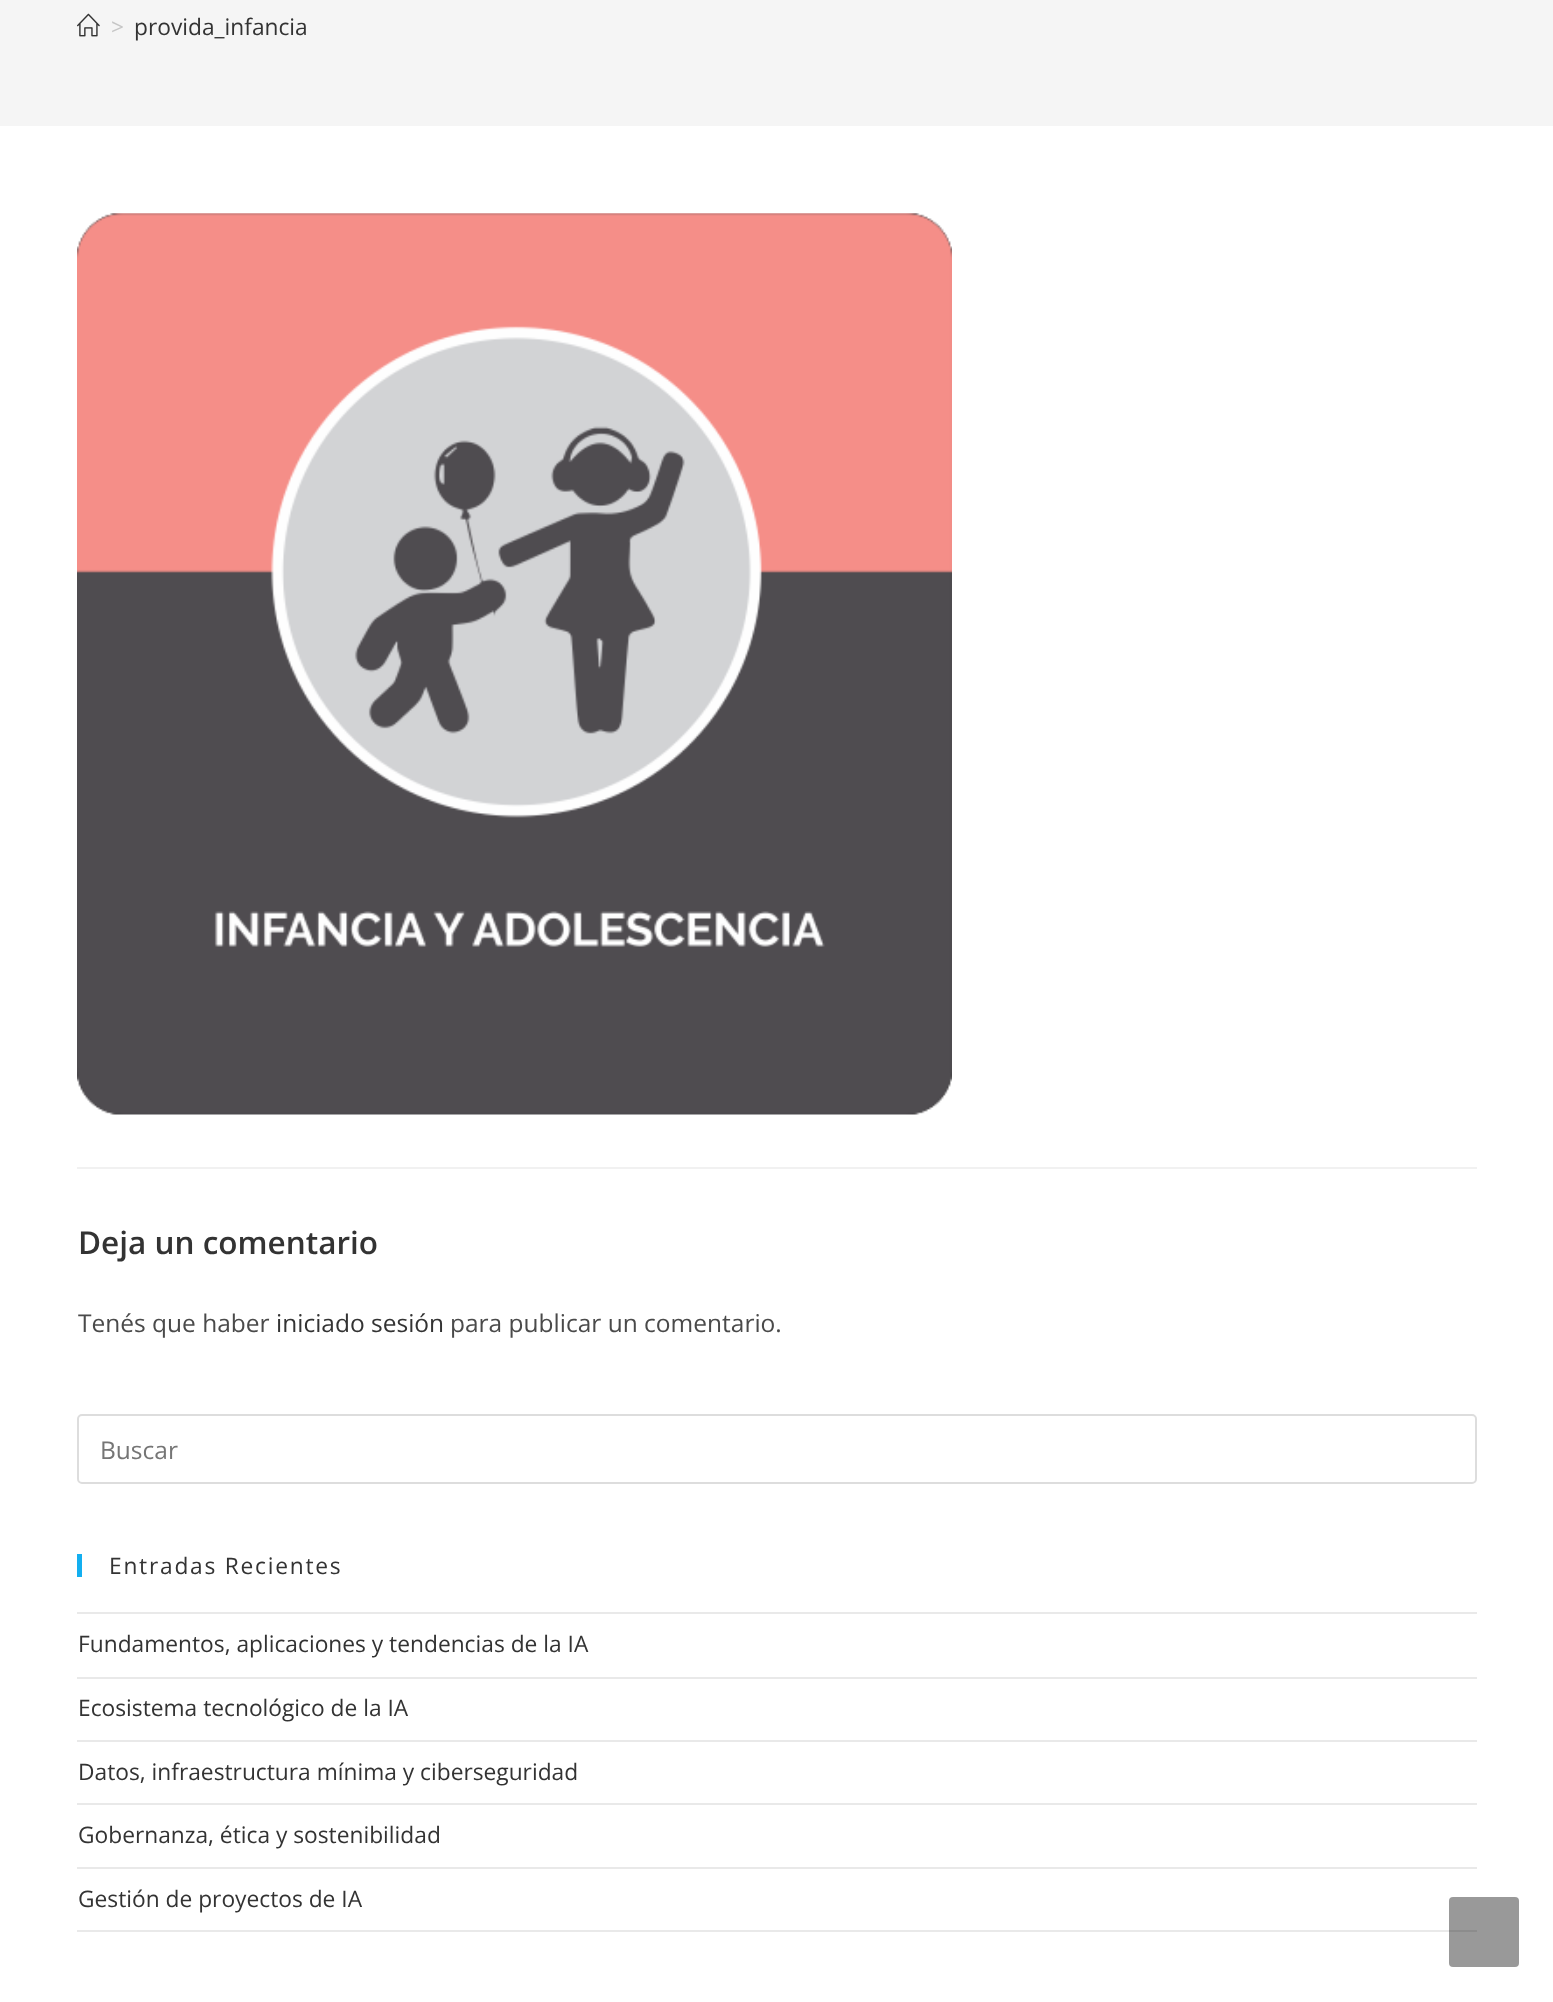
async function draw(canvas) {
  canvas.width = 1553;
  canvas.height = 2002;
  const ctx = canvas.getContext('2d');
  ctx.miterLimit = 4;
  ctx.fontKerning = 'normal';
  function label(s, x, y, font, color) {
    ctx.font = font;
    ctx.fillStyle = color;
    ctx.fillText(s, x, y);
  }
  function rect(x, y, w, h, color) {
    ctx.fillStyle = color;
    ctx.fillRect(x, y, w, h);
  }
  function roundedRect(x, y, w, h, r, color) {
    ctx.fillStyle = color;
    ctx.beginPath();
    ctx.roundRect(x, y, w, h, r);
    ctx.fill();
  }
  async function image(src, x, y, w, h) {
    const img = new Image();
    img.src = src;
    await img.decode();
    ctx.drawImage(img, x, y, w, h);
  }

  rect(0, 0, 1553, 2002, '#fff');
  rect(0, 0, 1553, 126, '#f5f5f5');
  await image('assets/img1.png', 77, 13, 23, 24);
  label('>', 111, 35, '22.75px Open Sans', '#c6c6c6');
  label('provida_infancia', 134, 35, '22.75px Open Sans', '#333');
  await image('assets/img2.png', 77, 213, 875, 902);
  rect(77, 1167, 1400, 2, '#f1f1f1');
  label('Deja un comentario', 78, 1254, '600 31.5px Open Sans', '#333');
  label('Tenés que haber', 78, 1332, '24.5px Open Sans', '#4a4a4a');
  label('iniciado sesión', 276, 1332, '24.5px Open Sans', '#333');
  label('para publicar un comentario.', 450, 1332, '24.5px Open Sans', '#4a4a4a');
  ctx.beginPath();
  ctx.roundRect(78, 1415, 1398, 68, 4);
  ctx.strokeStyle = '#ddd';
  ctx.lineWidth = 2;
  ctx.stroke();
  label('Buscar', 100, 1459, '24.5px Open Sans', '#757575');
  rect(77, 1554, 5, 23, '#13aff0');
  ctx.letterSpacing = '1.75px';
  label('Entradas Recientes', 109, 1574, '22.75px Open Sans', '#333');
  rect(77, 1612, 1400, 2, '#e9e9e9');
  rect(77, 1677, 1400, 2, '#e9e9e9');
  ctx.letterSpacing = '0px';
  label('Fundamentos, aplicaciones y tendencias de la IA', 78, 1652, '22.75px Open Sans', '#333');
  rect(77, 1740, 1400, 2, '#e9e9e9');
  label('Ecosistema tecnológico de la IA', 78, 1716, '22.75px Open Sans', '#333');
  rect(77, 1803, 1400, 2, '#e9e9e9');
  label('Datos, infraestructura mínima y ciberseguridad', 78, 1780, '22.75px Open Sans', '#333');
  rect(77, 1867, 1400, 2, '#e9e9e9');
  label('Gobernanza, ética y sostenibilidad', 78, 1843, '22.75px Open Sans', '#333');
  rect(77, 1930, 1400, 2, '#e9e9e9');
  label('Gestión de proyectos de IA', 78, 1907, '22.75px Open Sans', '#333');
  roundedRect(1449, 1897, 70, 70, 4, '#00000066');
}

draw(document.querySelector('canvas'));
